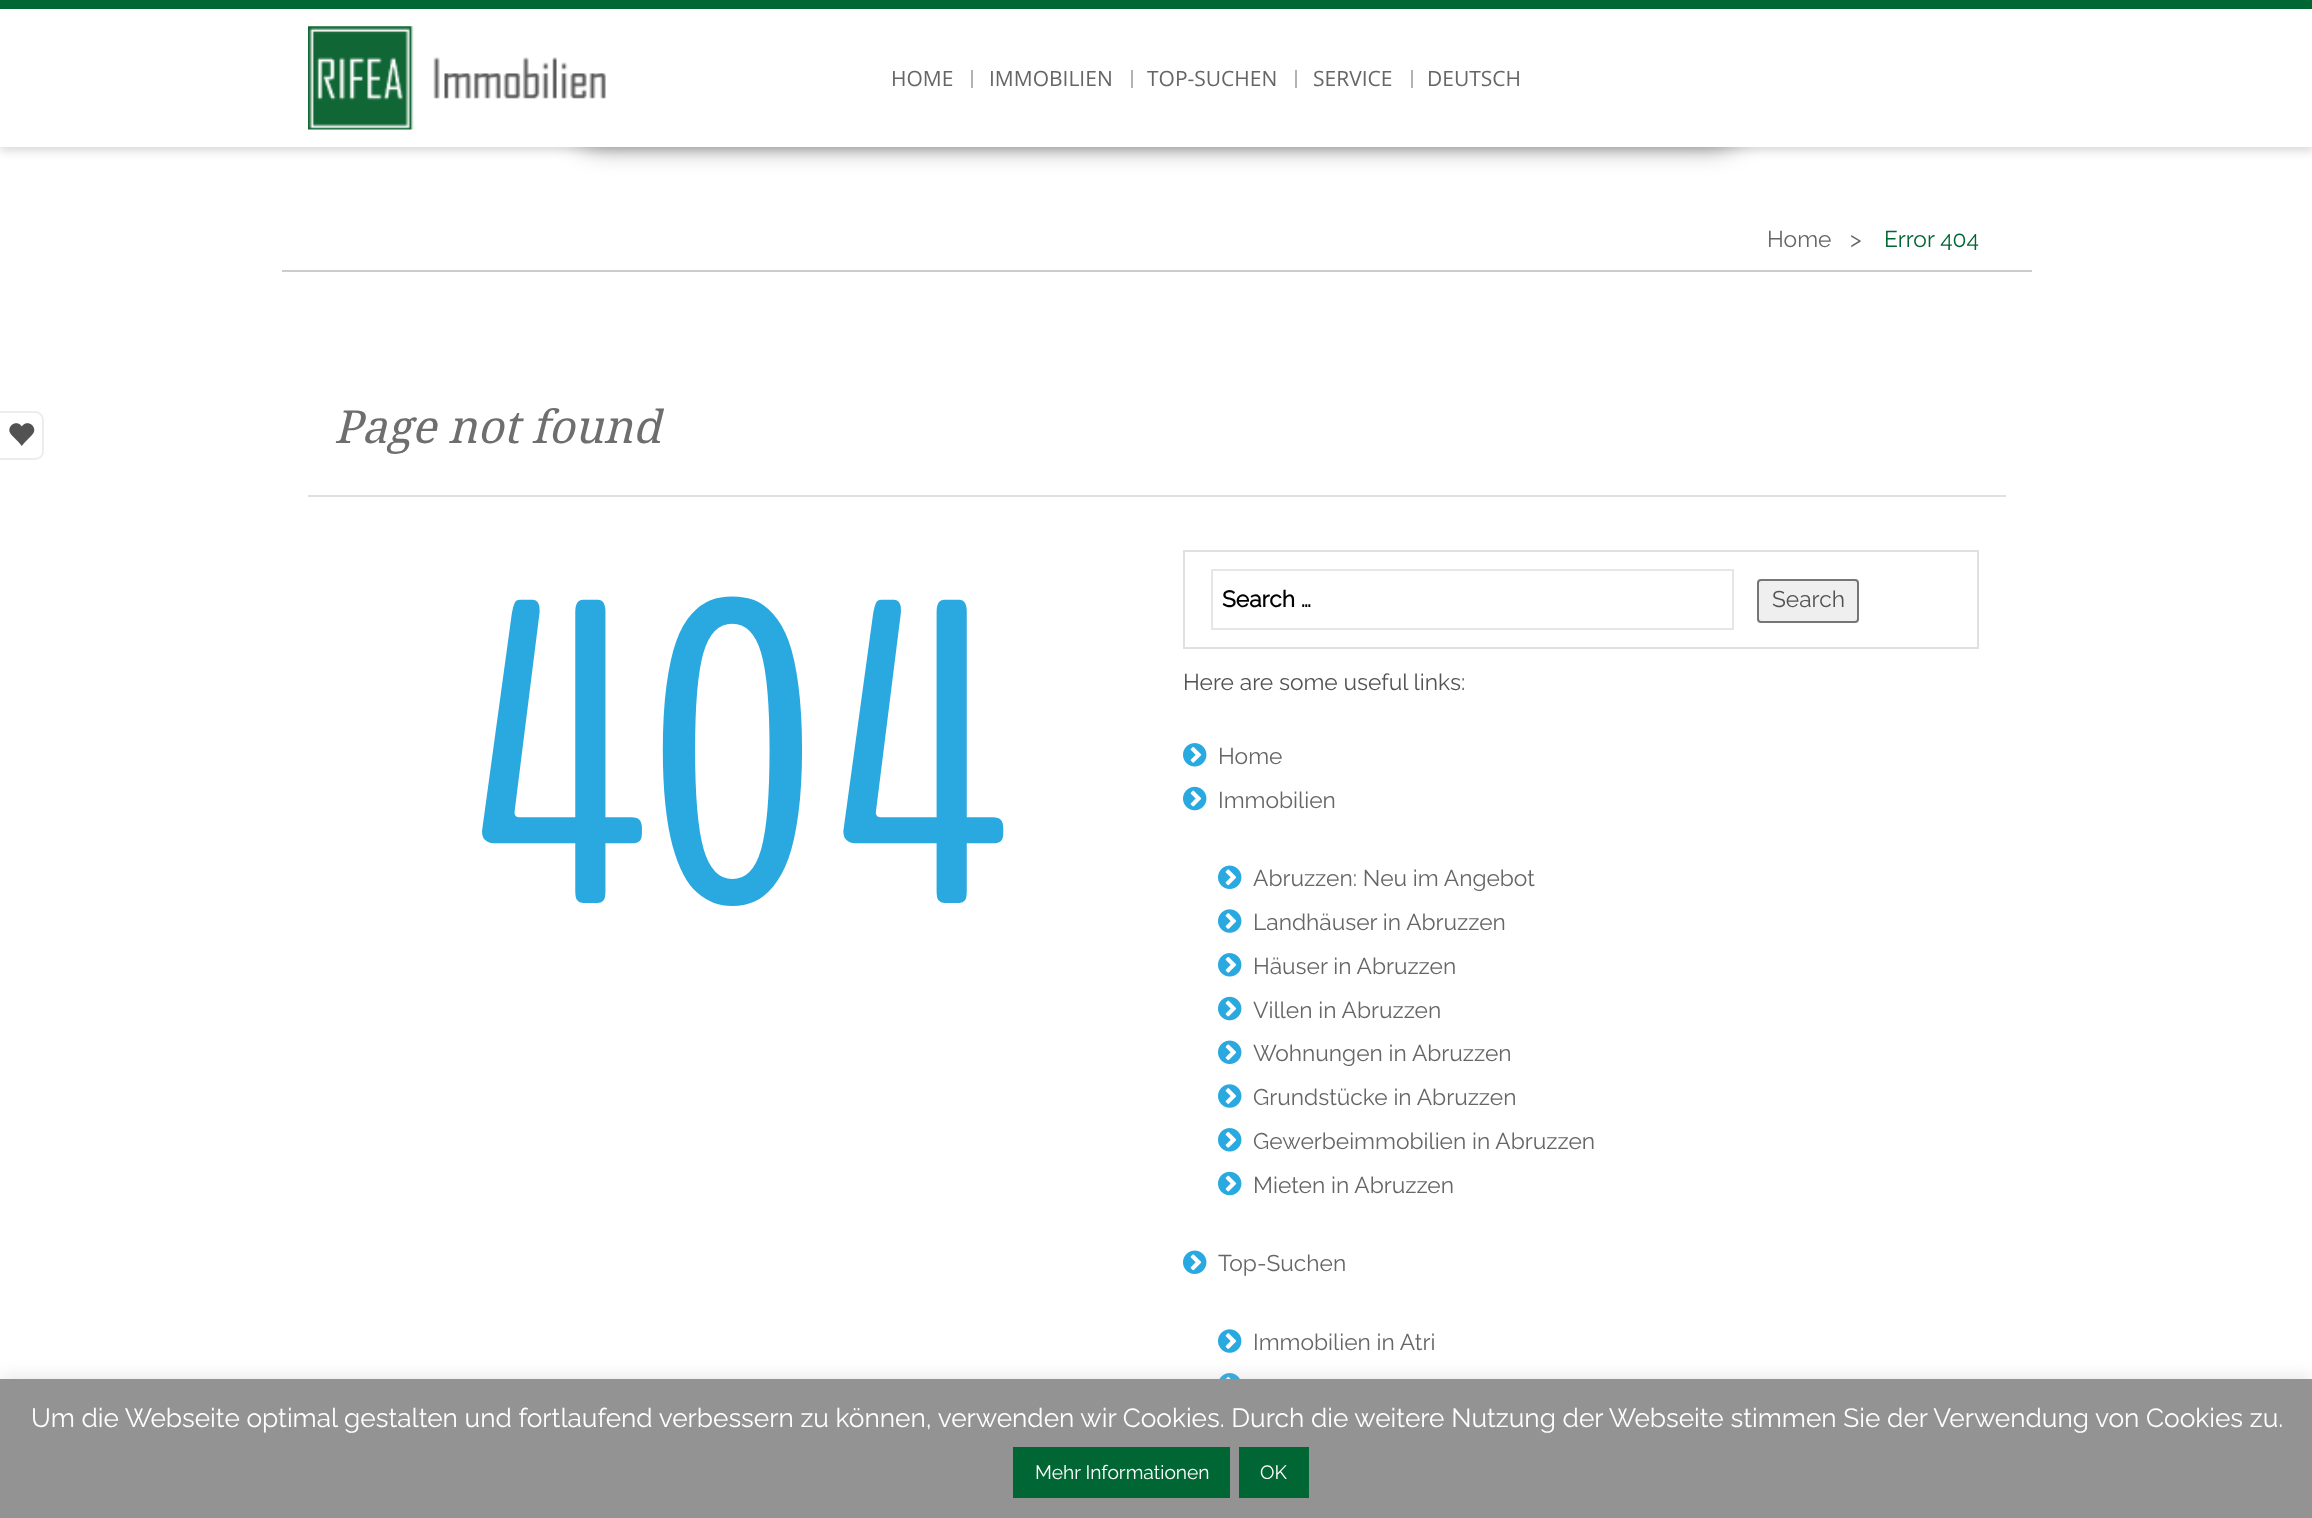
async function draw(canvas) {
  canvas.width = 2312;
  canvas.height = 1518;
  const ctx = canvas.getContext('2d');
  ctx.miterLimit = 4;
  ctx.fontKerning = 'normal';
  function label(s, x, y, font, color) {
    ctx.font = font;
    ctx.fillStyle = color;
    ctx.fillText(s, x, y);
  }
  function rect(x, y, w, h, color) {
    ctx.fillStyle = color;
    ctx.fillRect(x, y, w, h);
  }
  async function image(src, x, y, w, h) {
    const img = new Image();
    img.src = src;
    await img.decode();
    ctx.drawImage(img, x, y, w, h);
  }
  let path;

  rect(0, 0, 2312, 1518, '#fff');
  ctx.fillStyle = '#00000026';
  ctx.filter = 'blur(5px)';
  ctx.beginPath();
  ctx.rect(0, 4, 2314, 147);
  ctx.fill();
  ctx.filter = 'none';
  rect(0, 0, 2312, 9, '#063');
  ctx.fillStyle = '#00000080';
  ctx.filter = 'blur(14px)';
  ctx.beginPath();
  ctx.roundRect(579, 75, 1157, 69, 18);
  ctx.fill();
  ctx.filter = 'none';
  rect(0, 9, 2312, 138, '#fff');
  await image('assets/img1.png', 308, 26, 298, 104);
  label('HOME', 891, 86, '21px Open Sans', '#666');
  rect(971, 70, 2, 18, '#b2b2b2');
  label('IMMOBILIEN', 989, 86, '21px Open Sans', '#666');
  rect(1131, 70, 2, 18, '#b2b2b2');
  label('TOP-SUCHEN', 1147, 86, '21px Open Sans', '#666');
  rect(1295, 70, 2, 18, '#b2b2b2');
  label('SERVICE', 1313, 86, '21px Open Sans', '#666');
  rect(1411, 70, 2, 18, '#b2b2b2');
  label('DEUTSCH', 1427, 86, '21px Open Sans', '#666');
  rect(282, 270, 1750, 2, '#ccc');
  label('Home', 1767, 247, '100 22.75px Raleway', '#666');
  label('>', 1850, 247, '100 22.75px Raleway', '#666');
  label('Error 404', 1884, 247, '100 22.75px Raleway', '#063');
  ctx.fillStyle = '#ededed';
  path = new Path2D('M0 411H35C40 411 44 415 44 420V452C44 456 40 460 35 460H0ZM0 413H35C39 413 42 416 42 420V452C42 455 39 458 35 458H0Z');
  ctx.fill(path, 'evenodd');
  await image('assets/img2.png', 9, 423, 26, 23);
  rect(308, 495, 1698, 2, '#e0e0e0');
  label('Page not found', 334, 443, 'italic 45.5px Droid Serif', '#6e6e6e');
  label('404', 462, 903, '432px BenchNine', '#29a9df');
  ctx.strokeStyle = '#e0e0e0';
  ctx.lineWidth = 2;
  ctx.strokeRect(1184, 551, 794, 97);
  ctx.strokeStyle = '#e6e6e6';
  ctx.strokeRect(1212, 570, 521, 59);
  label('Search …', 1222, 607, 'bold 22.75px Raleway', '#000');
  ctx.fillStyle = '#efefef';
  ctx.beginPath();
  ctx.roundRect(1758, 580, 100, 42, 3);
  ctx.fill();
  ctx.strokeStyle = '#767676';
  ctx.stroke();
  label('Search', 1772, 607, '100 22.75px Raleway', '#525252');
  label('Here are some useful links:', 1183, 690, '100 22.75px Raleway', '#525252');
  await image('assets/img3.png', 1183, 743, 24, 24);
  label('Home', 1218, 764, '100 22.75px Raleway', '#666');
  await image('assets/img4.png', 1183, 786, 24, 25);
  label('Immobilien', 1218, 808, '100 22.75px Raleway', '#666');
  await image('assets/img5.png', 1218, 865, 24, 24);
  label('Abruzzen: Neu im Angebot', 1253, 886, '100 22.75px Raleway', '#666');
  await image('assets/img6.png', 1218, 909, 24, 24);
  label('Landhäuser in Abruzzen', 1253, 930, '100 22.75px Raleway', '#666');
  await image('assets/img3.png', 1218, 953, 24, 24);
  label('Häuser in Abruzzen', 1253, 974, '100 22.75px Raleway', '#666');
  await image('assets/img4.png', 1218, 996, 24, 25);
  label('Villen in Abruzzen', 1253, 1018, '100 22.75px Raleway', '#666');
  await image('assets/img5.png', 1218, 1040, 24, 24);
  label('Wohnungen in Abruzzen', 1253, 1061, '100 22.75px Raleway', '#666');
  await image('assets/img6.png', 1218, 1084, 24, 24);
  label('Grundstücke in Abruzzen', 1253, 1105, '100 22.75px Raleway', '#666');
  await image('assets/img3.png', 1218, 1128, 24, 24);
  label('Gewerbeimmobilien in Abruzzen', 1253, 1149, '100 22.75px Raleway', '#666');
  await image('assets/img4.png', 1218, 1171, 24, 25);
  label('Mieten in Abruzzen', 1253, 1193, '100 22.75px Raleway', '#666');
  await image('assets/img5.png', 1183, 1250, 24, 24);
  label('Top-Suchen', 1218, 1271, '100 22.75px Raleway', '#666');
  await image('assets/img6.png', 1218, 1329, 24, 24);
  label('Immobilien in Atri', 1253, 1350, '100 22.75px Raleway', '#666');
  await image('assets/img7.png', 1219, 1373, 21, 6);
  ctx.fillStyle = '#acabab4d';
  ctx.filter = 'blur(9px)';
  ctx.beginPath();
  ctx.rect(0, 1377, 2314, 140);
  ctx.fill();
  ctx.filter = 'none';
  rect(0, 1379, 2312, 139, '#939393');
  label('Um die Webseite optimal gestalten und fortlaufend verbessern zu können, verwenden wir Cookies. Durch die weitere Nutzung der Webseite stimmen Sie der Verwendung von Cookies zu.', 31, 1427, '100 26.25px Raleway', '#fff');
  rect(1013, 1447, 217, 51, '#063');
  label('Mehr Informationen', 1035, 1479, '100 19.25px Raleway', '#fff');
  rect(1239, 1447, 70, 51, '#063');
  label('OK', 1260, 1479, '100 19.25px Raleway', '#fff');
}

draw(document.querySelector('canvas'));
